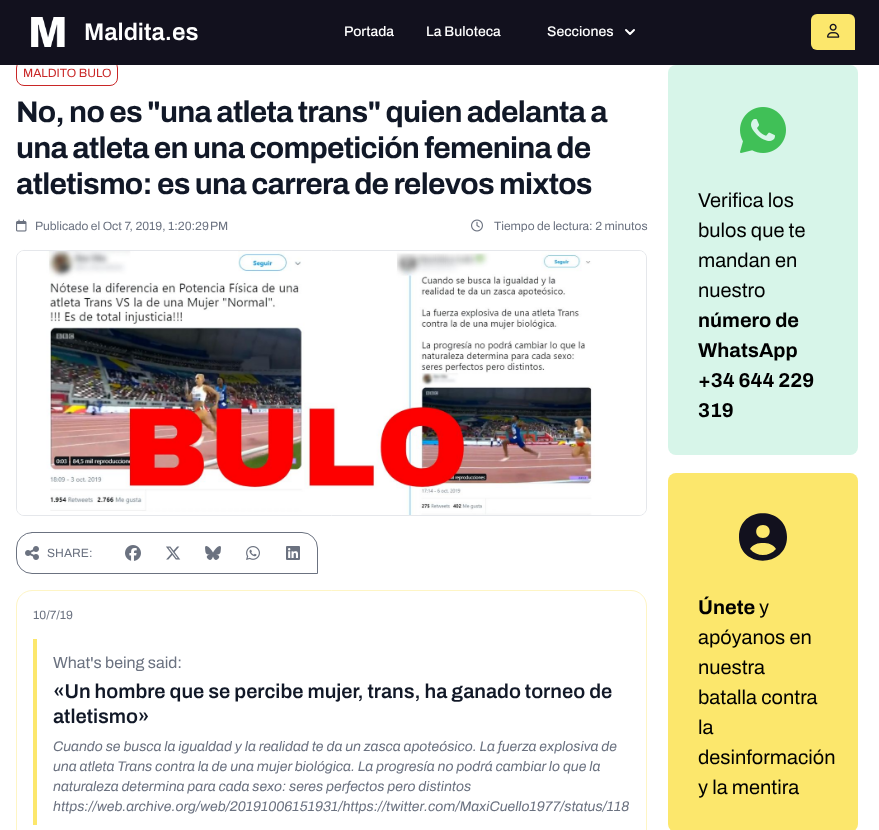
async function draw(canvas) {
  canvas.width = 879;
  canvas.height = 830;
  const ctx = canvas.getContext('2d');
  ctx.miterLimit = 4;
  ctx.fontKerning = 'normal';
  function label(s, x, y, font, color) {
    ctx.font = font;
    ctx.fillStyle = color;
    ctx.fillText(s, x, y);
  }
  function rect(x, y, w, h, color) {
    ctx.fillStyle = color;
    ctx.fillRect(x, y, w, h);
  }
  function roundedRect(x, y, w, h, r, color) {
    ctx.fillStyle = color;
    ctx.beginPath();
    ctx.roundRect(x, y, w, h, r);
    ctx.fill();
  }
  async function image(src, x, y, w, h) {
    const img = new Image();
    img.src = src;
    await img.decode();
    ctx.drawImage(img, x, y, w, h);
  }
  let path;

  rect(0, 0, 879, 830, '#fff');
  ctx.beginPath();
  ctx.roundRect(16.5, 60.5, 101, 25, 7.5);
  ctx.strokeStyle = '#c92727';
  ctx.stroke();
  rect(0, 0, 879, 65, '#12111e');
  await image('assets/img1.png', 31, 17, 34, 30);
  label('Maldita.es', 84, 40, '600 24px Archivo', '#fff');
  label('Portada', 344, 36, '500 14px Archivo', '#fff');
  label('La Buloteca', 426, 36, '500 14px Archivo', '#fff');
  label('Secciones', 547, 36, '500 14px Archivo', '#fff');
  path = new Path2D('M626 30L630 34L634 30');
  ctx.strokeStyle = '#fff';
  ctx.lineWidth = 2;
  ctx.lineCap = 'round';
  ctx.lineJoin = 'round';
  ctx.stroke(path);
  ctx.fillStyle = '#fce76c';
  ctx.beginPath();
  ctx.roundRect(811, 14, 44, 36, [6, 6, 0, 6]);
  ctx.fill();
  await image('assets/img2.png', 827, 23, 13, 15);
  label('MALDITO BULO', 23, 77, '12px Archivo', '#c92727');
  ctx.letterSpacing = '-0.75px';
  label('No, no es "una atleta trans" quien adelanta a', 16, 122, 'bold 30px Archivo', '#111827');
  label('una atleta en una competición femenina de', 16, 158, 'bold 30px Archivo', '#111827');
  label('atletismo: es una carrera de relevos mixtos', 16, 194, 'bold 30px Archivo', '#111827');
  await image('assets/img3.png', 16, 219, 11, 13);
  ctx.letterSpacing = '0px';
  label('Publicado el Oct 7, 2019, 1:20:29 PM', 35, 230, '12px Archivo', '#6b7280');
  await image('assets/img4.png', 471, 219, 12, 13);
  label('Tiempo de lectura: 2 minutos', 494, 230, '12px Archivo', '#6b7280');
  ctx.beginPath();
  ctx.roundRect(16.5, 250.5, 630, 265, 7.5);
  ctx.strokeStyle = '#e5e7eb';
  ctx.lineWidth = 1;
  ctx.lineJoin = 'miter';
  ctx.stroke();
  await image('assets/img5.png', 17, 251, 629, 264);
  ctx.beginPath();
  ctx.roundRect(16.5, 532.5, 301, 41, [15.5, 15.5, 0, 15.5]);
  ctx.strokeStyle = '#6b7280';
  ctx.stroke();
  await image('assets/img6.png', 25, 546, 14, 14);
  label('SHARE:', 47, 557, '12px Archivo', '#6b7280');
  await image('assets/img7.png', 125, 545, 16, 16);
  await image('assets/img8.png', 166, 546, 15, 14);
  await image('assets/img9.png', 205, 546, 16, 14);
  await image('assets/img10.png', 246, 546, 14, 14);
  await image('assets/img11.png', 286, 546, 14, 14);
  path = new Path2D('M32 590.5H631C639.5 590.5 646.5 597.5 646.5 606V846.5H16.5V606C16.5 597.5 23.5 590.5 32 590.5Z');
  ctx.strokeStyle = '#fef5c5';
  ctx.stroke(path);
  label('10/7/19', 33, 619, '12px Archivo', '#6b7280');
  rect(33, 639, 4, 186, '#fce76c');
  label('What\'s being said:', 53, 668, '16px Archivo', '#6b7280');
  label('«Un hombre que se percibe mujer, trans, ha ganado torneo de', 53, 698, '600 20px Archivo', '#111827');
  label('atletismo»', 53, 723, '600 20px Archivo', '#111827');
  label('Cuando se busca la igualdad y la realidad te da un zasca apoteósico. La fuerza explosiva de', 53, 751, 'italic 14px Archivo', '#6b7280');
  label('una atleta Trans contra la de una mujer biológica. La progresía no podrá cambiar lo que la', 53, 771, 'italic 14px Archivo', '#6b7280');
  label('naturaleza determina para cada sexo: seres perfectos pero distintos', 53, 791, 'italic 14px Archivo', '#6b7280');
  label('https://web.archive.org/web/20191006151931/https://twitter.com/MaxiCuello1977/status/118', 53, 811, 'italic 14px Archivo', '#6b7280');
  roundedRect(668, 65, 190, 390, 8, '#d7f5e9');
  await image('assets/img12.png', 740, 107, 46, 46);
  label('Verifica los', 698, 207, '20px Archivo', '#000');
  label('bulos que te', 698, 237, '20px Archivo', '#000');
  label('mandan en', 698, 267, '20px Archivo', '#000');
  label('nuestro', 698, 297, '20px Archivo', '#000');
  label('número de', 698, 327, 'bold 20px Archivo', '#000');
  label('WhatsApp', 698, 357, 'bold 20px Archivo', '#000');
  label('+34 644 229', 698, 387, 'bold 20px Archivo', '#000');
  label('319', 698, 417, 'bold 20px Archivo', '#000');
  roundedRect(668, 473, 190, 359, 8, '#fce76c');
  ctx.fillStyle = '#12111e';
  path = new Path2D('M776 549C773 544 768 543 763 543C758 543 753 544 750 549C757 557 769 557 776 549ZM739 537C739 505 787 506 787 537C787 568 739 569 739 537ZM763 538C772 538 772 525 763 525C754 525 754 538 763 538Z');
  ctx.fill(path);
  label('Únete', 698, 614, 'bold 20px Archivo', '#000');
  label('y', 759, 614, '20px Archivo', '#000');
  label('apóyanos en', 698, 644, '20px Archivo', '#000');
  label('nuestra', 698, 674, '20px Archivo', '#000');
  label('batalla contra', 698, 704, '20px Archivo', '#000');
  label('la', 698, 734, '20px Archivo', '#000');
  label('desinformación', 698, 764, '20px Archivo', '#000');
  label('y la mentira', 698, 794, '20px Archivo', '#000');
}

draw(document.querySelector('canvas'));
